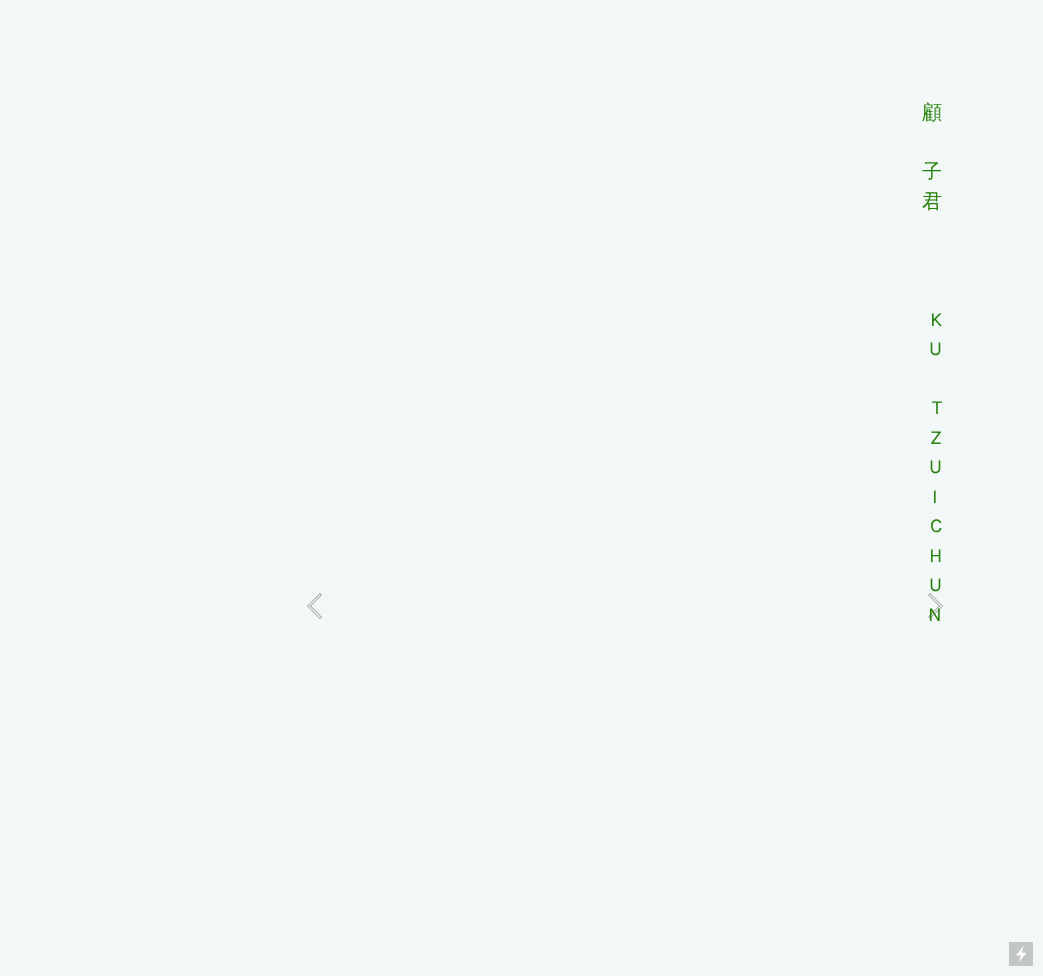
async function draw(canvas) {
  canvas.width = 1043;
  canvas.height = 976;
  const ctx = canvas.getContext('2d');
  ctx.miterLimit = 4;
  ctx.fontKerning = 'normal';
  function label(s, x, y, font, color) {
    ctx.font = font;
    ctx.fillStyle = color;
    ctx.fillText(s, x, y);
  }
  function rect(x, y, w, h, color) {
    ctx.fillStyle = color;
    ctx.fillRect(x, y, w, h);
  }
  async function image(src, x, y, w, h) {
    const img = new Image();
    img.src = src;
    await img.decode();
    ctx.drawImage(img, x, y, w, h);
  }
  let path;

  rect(0, 0, 1043, 976, '#f2f8f8');
  label('顧', 922, 119, '500 20px WenQuanYi Zen Hei', '#238107');
  label('子', 922, 178, '500 20px WenQuanYi Zen Hei', '#238107');
  label('君', 922, 208, '500 20px WenQuanYi Zen Hei', '#238107');
  label('K', 930, 326, '20px Karla', '#238107');
  label('U', 929, 355, '20px Karla', '#238107');
  label('T', 932, 414, '20px Karla', '#238107');
  label('Z', 930, 444, '20px Karla', '#238107');
  label('U', 929, 473, '20px Karla', '#238107');
  label('I', 932, 503, '20px Karla', '#238107');
  label('C', 930, 532, '20px Karla', '#238107');
  label('H', 929, 562, '20px Karla', '#238107');
  label('U', 929, 591, '20px Karla', '#238107');
  path = new Path2D('M930 617L941 606L930 595');
  ctx.strokeStyle = '#616363';
  ctx.lineWidth = 2.5;
  ctx.lineCap = 'square';
  ctx.stroke(path);
  path = new Path2D('M930 617L941 606L930 595');
  ctx.strokeStyle = '#fff';
  ctx.lineWidth = 1.5;
  ctx.stroke(path);
  label('N', 928, 621, '20px Karla', '#238107');
  path = new Path2D('M320 617L309 606L320 595');
  ctx.strokeStyle = '#616363';
  ctx.lineWidth = 2.5;
  ctx.stroke(path);
  path = new Path2D('M320 617L309 606L320 595');
  ctx.strokeStyle = '#fff';
  ctx.lineWidth = 1.5;
  ctx.stroke(path);
  rect(1009, 942, 24, 24, '#c2c6c6');
  await image('assets/img1.png', 1016, 946, 11, 16);
}

draw(document.querySelector('canvas'));
